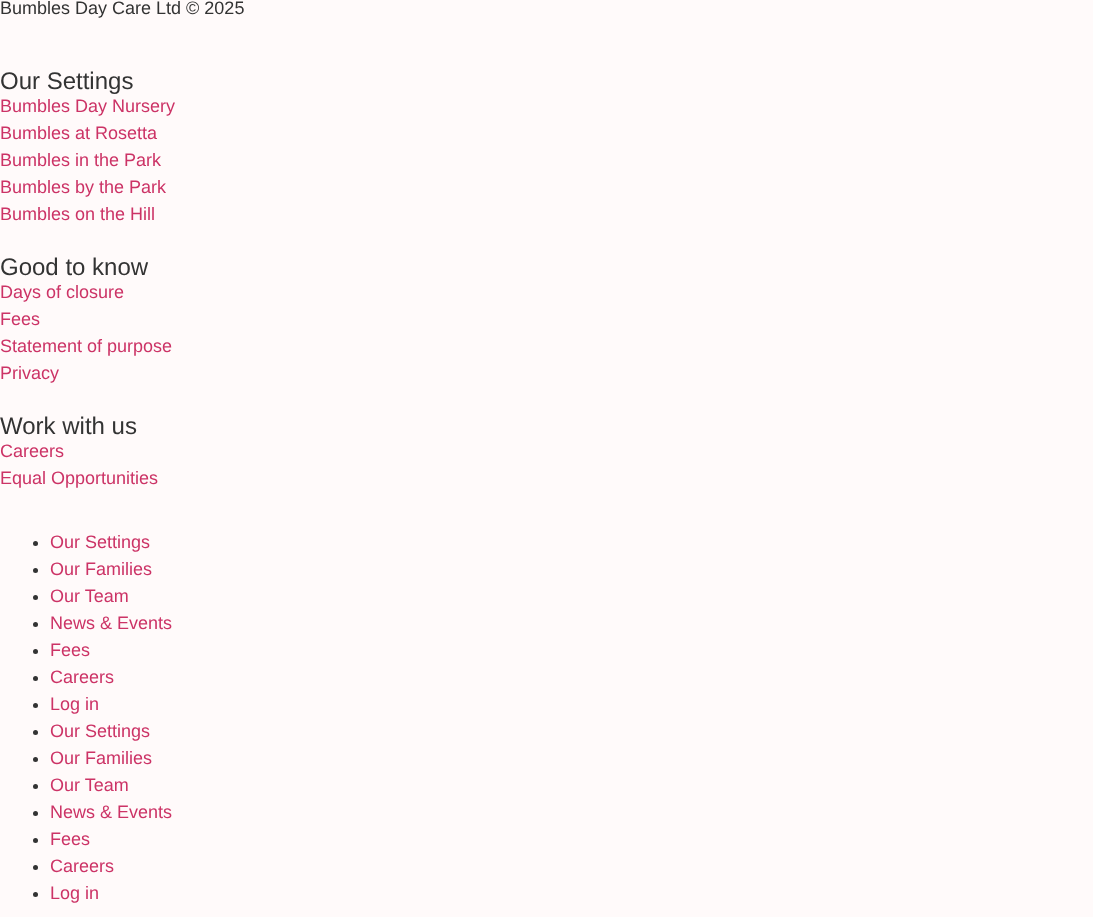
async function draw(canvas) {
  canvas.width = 1093;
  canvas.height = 917;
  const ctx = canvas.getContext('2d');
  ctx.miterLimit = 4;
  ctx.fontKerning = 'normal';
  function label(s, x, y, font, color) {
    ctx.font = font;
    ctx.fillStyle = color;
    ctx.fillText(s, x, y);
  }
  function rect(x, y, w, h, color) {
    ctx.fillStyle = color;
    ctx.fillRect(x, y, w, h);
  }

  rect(0, 0, 1093, 917, '#fffafa');
  label('Bumbles Day Care Ltd © 2025', 0, 14, '18px Liberation Sans', '#333');
  label('Our Settings', 0, 89, '24px Liberation Sans', '#333');
  label('Bumbles Day Nursery', 0, 112, '18px Liberation Sans', '#c36');
  label('Bumbles at Rosetta', 0, 139, '18px Liberation Sans', '#c36');
  label('Bumbles in the Park', 0, 166, '18px Liberation Sans', '#c36');
  label('Bumbles by the Park', 0, 193, '18px Liberation Sans', '#c36');
  label('Bumbles on the Hill', 0, 220, '18px Liberation Sans', '#c36');
  label('Good to know', 0, 275, '24px Liberation Sans', '#333');
  label('Days of closure', 0, 298, '18px Liberation Sans', '#c36');
  label('Fees', 0, 325, '18px Liberation Sans', '#c36');
  label('Statement of purpose', 0, 352, '18px Liberation Sans', '#c36');
  label('Privacy', 0, 379, '18px Liberation Sans', '#c36');
  label('Work with us', 0, 434, '24px Liberation Sans', '#333');
  label('Careers', 0, 457, '18px Liberation Sans', '#c36');
  label('Equal Opportunities', 0, 484, '18px Liberation Sans', '#c36');
  ctx.fillStyle = '#333';
  ctx.beginPath();
  ctx.arc(35.5, 543.5, 2.5, 0, 2 * Math.PI);
  ctx.fill();
  label('Our Settings', 50, 548, '18px Liberation Sans', '#c36');
  ctx.fillStyle = '#333';
  ctx.beginPath();
  ctx.arc(35.5, 570.5, 2.5, 0, 2 * Math.PI);
  ctx.fill();
  label('Our Families', 50, 575, '18px Liberation Sans', '#c36');
  ctx.fillStyle = '#333';
  ctx.beginPath();
  ctx.arc(35.5, 597.5, 2.5, 0, 2 * Math.PI);
  ctx.fill();
  label('Our Team', 50, 602, '18px Liberation Sans', '#c36');
  ctx.fillStyle = '#333';
  ctx.beginPath();
  ctx.arc(35.5, 624.5, 2.5, 0, 2 * Math.PI);
  ctx.fill();
  label('News & Events', 50, 629, '18px Liberation Sans', '#c36');
  ctx.fillStyle = '#333';
  ctx.beginPath();
  ctx.arc(35.5, 651.5, 2.5, 0, 2 * Math.PI);
  ctx.fill();
  label('Fees', 50, 656, '18px Liberation Sans', '#c36');
  ctx.fillStyle = '#333';
  ctx.beginPath();
  ctx.arc(35.5, 678.5, 2.5, 0, 2 * Math.PI);
  ctx.fill();
  label('Careers', 50, 683, '18px Liberation Sans', '#c36');
  ctx.fillStyle = '#333';
  ctx.beginPath();
  ctx.arc(35.5, 705.5, 2.5, 0, 2 * Math.PI);
  ctx.fill();
  label('Log in', 50, 710, '18px Liberation Sans', '#c36');
  ctx.fillStyle = '#333';
  ctx.beginPath();
  ctx.arc(35.5, 732.5, 2.5, 0, 2 * Math.PI);
  ctx.fill();
  label('Our Settings', 50, 737, '18px Liberation Sans', '#c36');
  ctx.fillStyle = '#333';
  ctx.beginPath();
  ctx.arc(35.5, 759.5, 2.5, 0, 2 * Math.PI);
  ctx.fill();
  label('Our Families', 50, 764, '18px Liberation Sans', '#c36');
  ctx.fillStyle = '#333';
  ctx.beginPath();
  ctx.arc(35.5, 786.5, 2.5, 0, 2 * Math.PI);
  ctx.fill();
  label('Our Team', 50, 791, '18px Liberation Sans', '#c36');
  ctx.fillStyle = '#333';
  ctx.beginPath();
  ctx.arc(35.5, 813.5, 2.5, 0, 2 * Math.PI);
  ctx.fill();
  label('News & Events', 50, 818, '18px Liberation Sans', '#c36');
  ctx.fillStyle = '#333';
  ctx.beginPath();
  ctx.arc(35.5, 840.5, 2.5, 0, 2 * Math.PI);
  ctx.fill();
  label('Fees', 50, 845, '18px Liberation Sans', '#c36');
  ctx.fillStyle = '#333';
  ctx.beginPath();
  ctx.arc(35.5, 867.5, 2.5, 0, 2 * Math.PI);
  ctx.fill();
  label('Careers', 50, 872, '18px Liberation Sans', '#c36');
  ctx.fillStyle = '#333';
  ctx.beginPath();
  ctx.arc(35.5, 894.5, 2.5, 0, 2 * Math.PI);
  ctx.fill();
  label('Log in', 50, 899, '18px Liberation Sans', '#c36');
}

draw(document.querySelector('canvas'));
